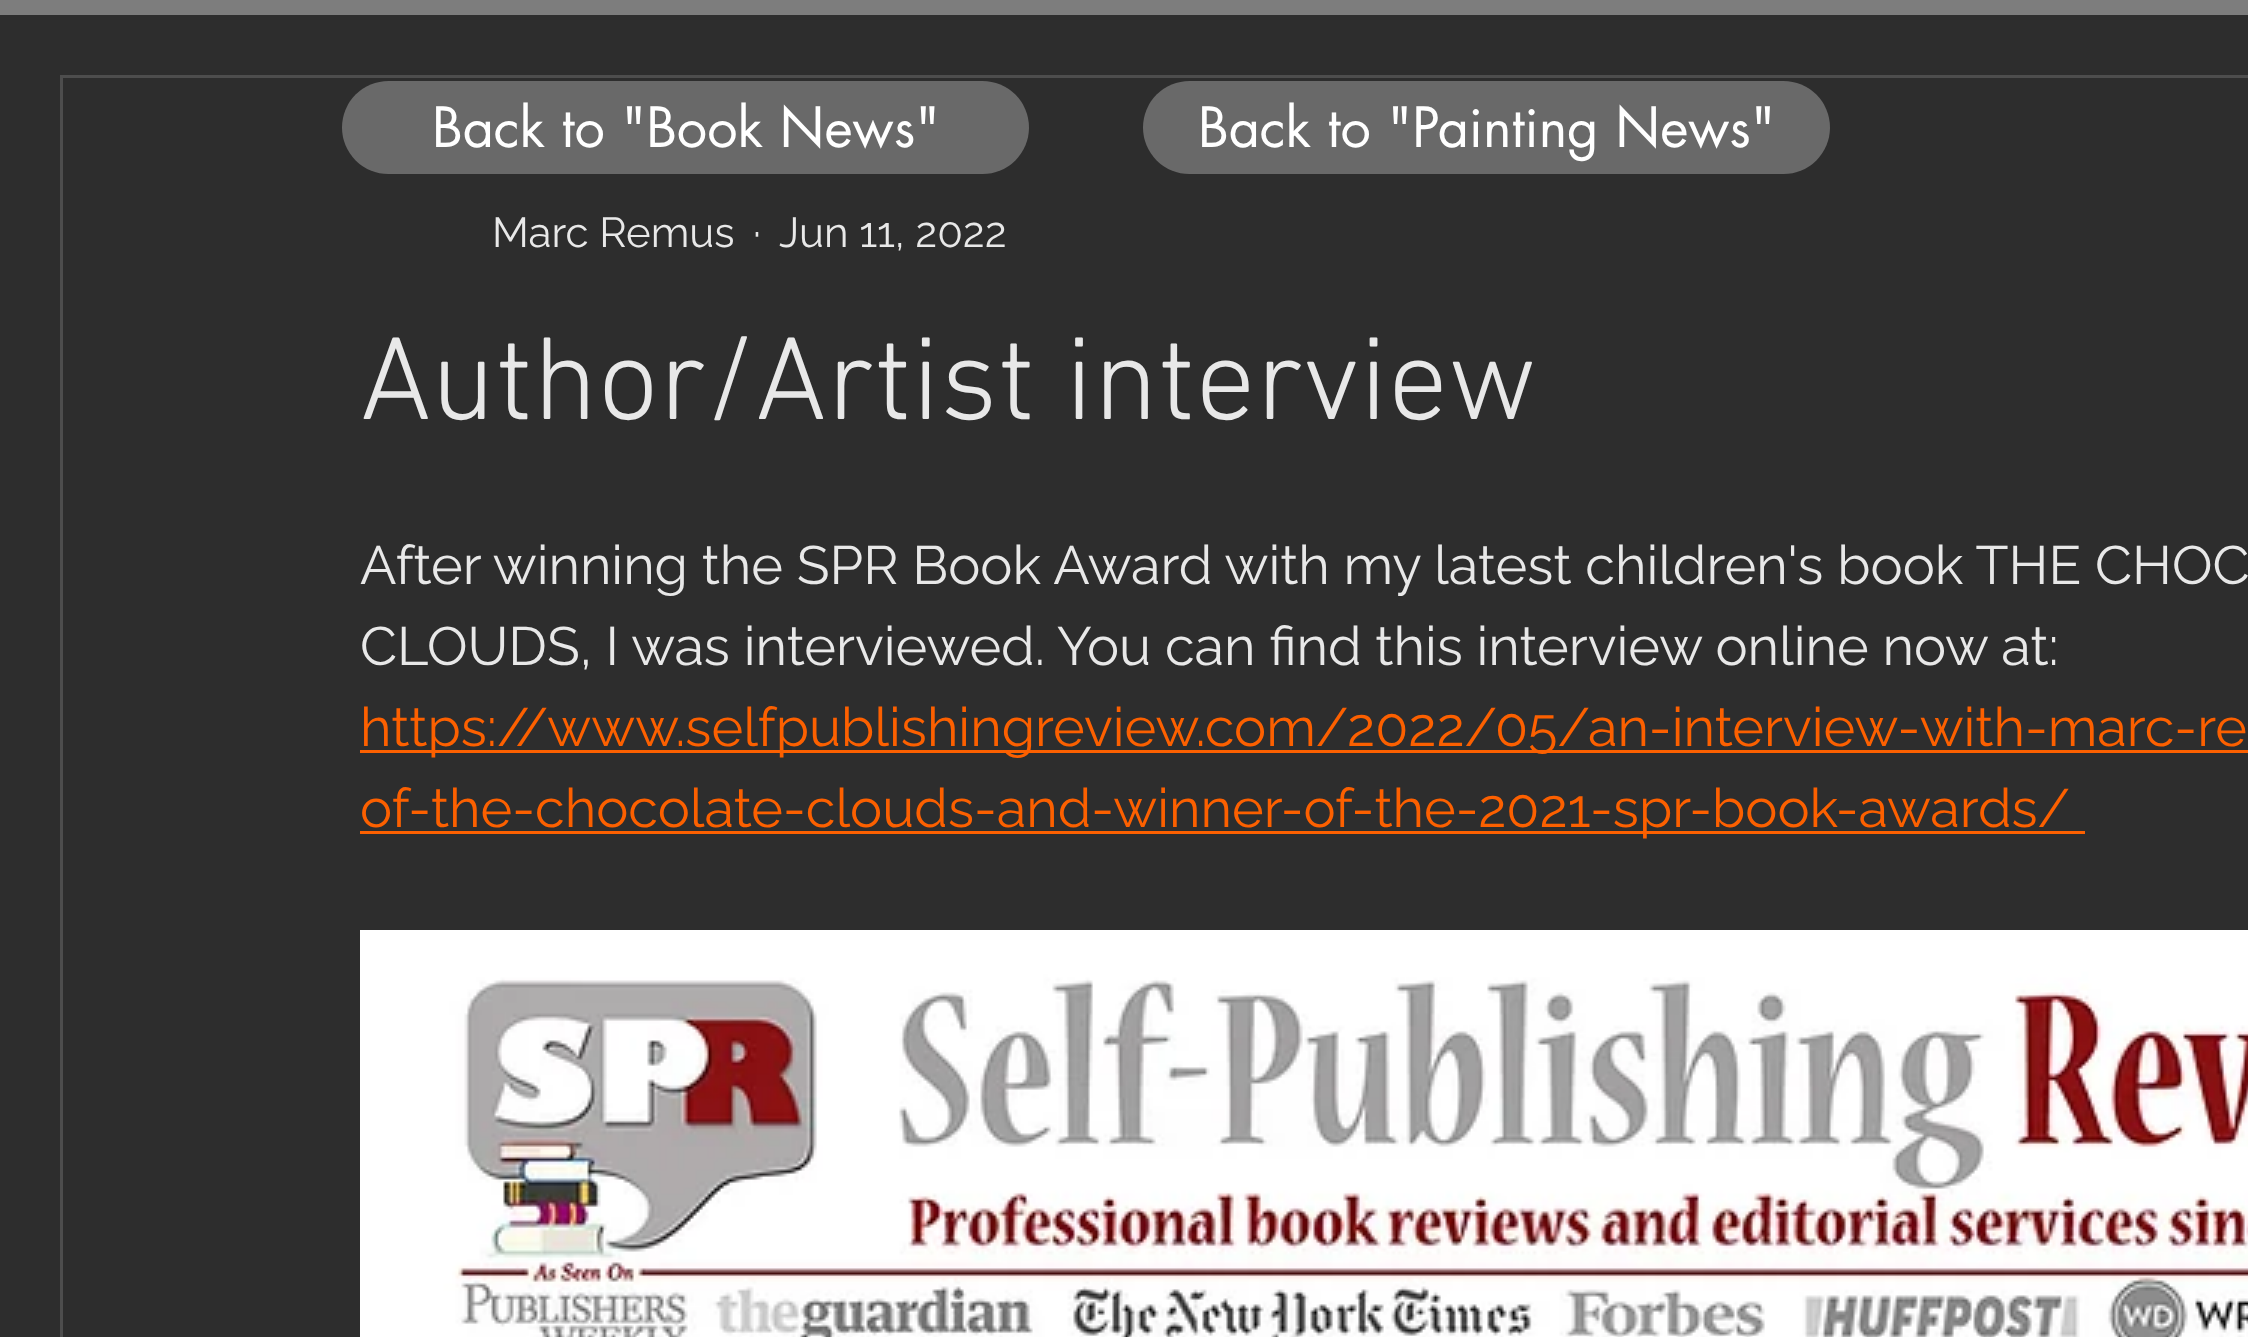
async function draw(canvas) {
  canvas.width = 2248;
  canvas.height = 1337;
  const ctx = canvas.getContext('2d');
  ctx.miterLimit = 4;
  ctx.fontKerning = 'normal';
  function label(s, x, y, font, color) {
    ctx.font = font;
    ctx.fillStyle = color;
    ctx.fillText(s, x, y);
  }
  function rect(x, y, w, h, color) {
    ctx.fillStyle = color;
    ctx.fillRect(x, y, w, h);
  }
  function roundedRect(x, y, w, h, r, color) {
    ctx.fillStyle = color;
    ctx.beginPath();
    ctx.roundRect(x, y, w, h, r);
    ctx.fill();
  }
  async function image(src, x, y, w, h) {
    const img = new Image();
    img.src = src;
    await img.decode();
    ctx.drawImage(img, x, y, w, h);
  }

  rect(0, 0, 2248, 1337, '#2d2d2d');
  rect(0, 0, 2248, 15, '#7d7d7d');
  ctx.strokeStyle = '#4d4d4d';
  ctx.lineWidth = 3;
  ctx.strokeRect(61.5, 76.5, 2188, 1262);
  roundedRect(342, 81, 687, 93, 46.5, '#696969');
  label('Back to "Book News"', 432, 147, '54px futura', '#fff');
  roundedRect(1143, 81, 687, 93, 46.5, '#696969');
  label('Back to "Painting News"', 1198, 147, '54px futura', '#fff');
  label('Marc Remus', 492, 247, '42px Raleway', '#e8e8e8');
  label('·', 753, 247, '42px Raleway', '#e8e8e8');
  label('Jun 11, 2022', 779, 247, '42px Raleway', '#e8e8e8');
  label('Author/Artist interview', 360, 419, '300 120px "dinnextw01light"', '#e8e8e8');
  label('After winning the SPR Book Award with my latest children\'s book THE CHOC', 360, 584, '54px Raleway', '#e8e8e8');
  label('CLOUDS, I was interviewed. You can find this interview online now at:', 360, 665, '54px Raleway', '#e8e8e8');
  rect(360, 750, 1888, 3, '#fc6000');
  label('https://www.selfpublishingreview.com/2022/05/an-interview-with-marc-re', 360, 746, '54px Raleway', '#fc6000');
  rect(360, 831, 1725, 3, '#fc6000');
  label('of-the-chocolate-clouds-and-winner-of-the-2021-spr-book-awards/', 360, 827, '54px Raleway', '#fc6000');
  await image('assets/img1.png', 360, 930, 1888, 407);
}

draw(document.querySelector('canvas'));
